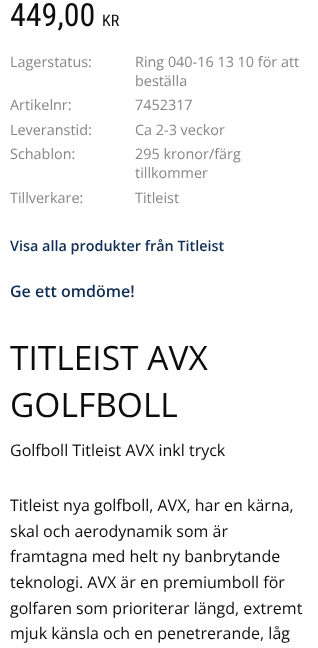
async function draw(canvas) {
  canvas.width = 318;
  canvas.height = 648;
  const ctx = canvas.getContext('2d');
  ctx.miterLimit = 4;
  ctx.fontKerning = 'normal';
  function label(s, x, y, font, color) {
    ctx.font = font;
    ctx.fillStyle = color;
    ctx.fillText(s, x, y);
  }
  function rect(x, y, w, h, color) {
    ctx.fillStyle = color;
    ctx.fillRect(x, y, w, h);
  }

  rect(0, 0, 318, 648, '#fff');
  label('449,00', 10, 26, '32px Roboto Condensed', '#0d0d0d');
  label('KR', 102, 26, '16px Roboto Condensed', '#0d0d0d');
  label('Lagerstatus:', 10, 67, '14.4px Open Sans', '#868686');
  label('Ring 040-16 13 10 för att', 135, 67, '14.4px Open Sans', '#868686');
  label('beställa', 135, 86, '14.4px Open Sans', '#868686');
  label('Artikelnr:', 10, 110, '14.4px Open Sans', '#868686');
  label('7452317', 135, 110, '14.4px Open Sans', '#868686');
  label('Leveranstid:', 10, 135, '14.4px Open Sans', '#868686');
  label('Ca 2-3 veckor', 135, 135, '14.4px Open Sans', '#868686');
  label('Schablon:', 10, 159, '14.4px Open Sans', '#868686');
  label('295 kronor/färg', 135, 159, '14.4px Open Sans', '#868686');
  label('tillkommer', 135, 178, '14.4px Open Sans', '#868686');
  label('Tillverkare:', 10, 203, '14.4px Open Sans', '#868686');
  label('Titleist', 135, 203, '14.4px Open Sans', '#868686');
  label('Visa alla produkter från Titleist', 10, 251, '600 14.4px Open Sans', '#0f2e54');
  label('Ge ett omdöme!', 10, 297, '600 16px Open Sans', '#0f2e54');
  label('TITLEIST AVX', 10, 370, '33.5px Open Sans', '#0d0d0d');
  label('GOLFBOLL', 10, 417, '33.5px Open Sans', '#0d0d0d');
  label('Golfboll Titleist AVX inkl tryck', 10, 456, '16px Open Sans', '#0d0d0d');
  label('Titleist nya golfboll, AVX, har en kärna,', 10, 511, '16px Open Sans', '#0d0d0d');
  label('skal och aerodynamik som är', 10, 537, '16px Open Sans', '#0d0d0d');
  label('framtagna med helt ny banbrytande', 10, 562, '16px Open Sans', '#0d0d0d');
  label('teknologi. AVX är en premiumboll för', 10, 588, '16px Open Sans', '#0d0d0d');
  label('golfaren som prioriterar längd, extremt', 10, 614, '16px Open Sans', '#0d0d0d');
  label('mjuk känsla och en penetrerande, låg', 10, 639, '16px Open Sans', '#0d0d0d');
}

draw(document.querySelector('canvas'));
